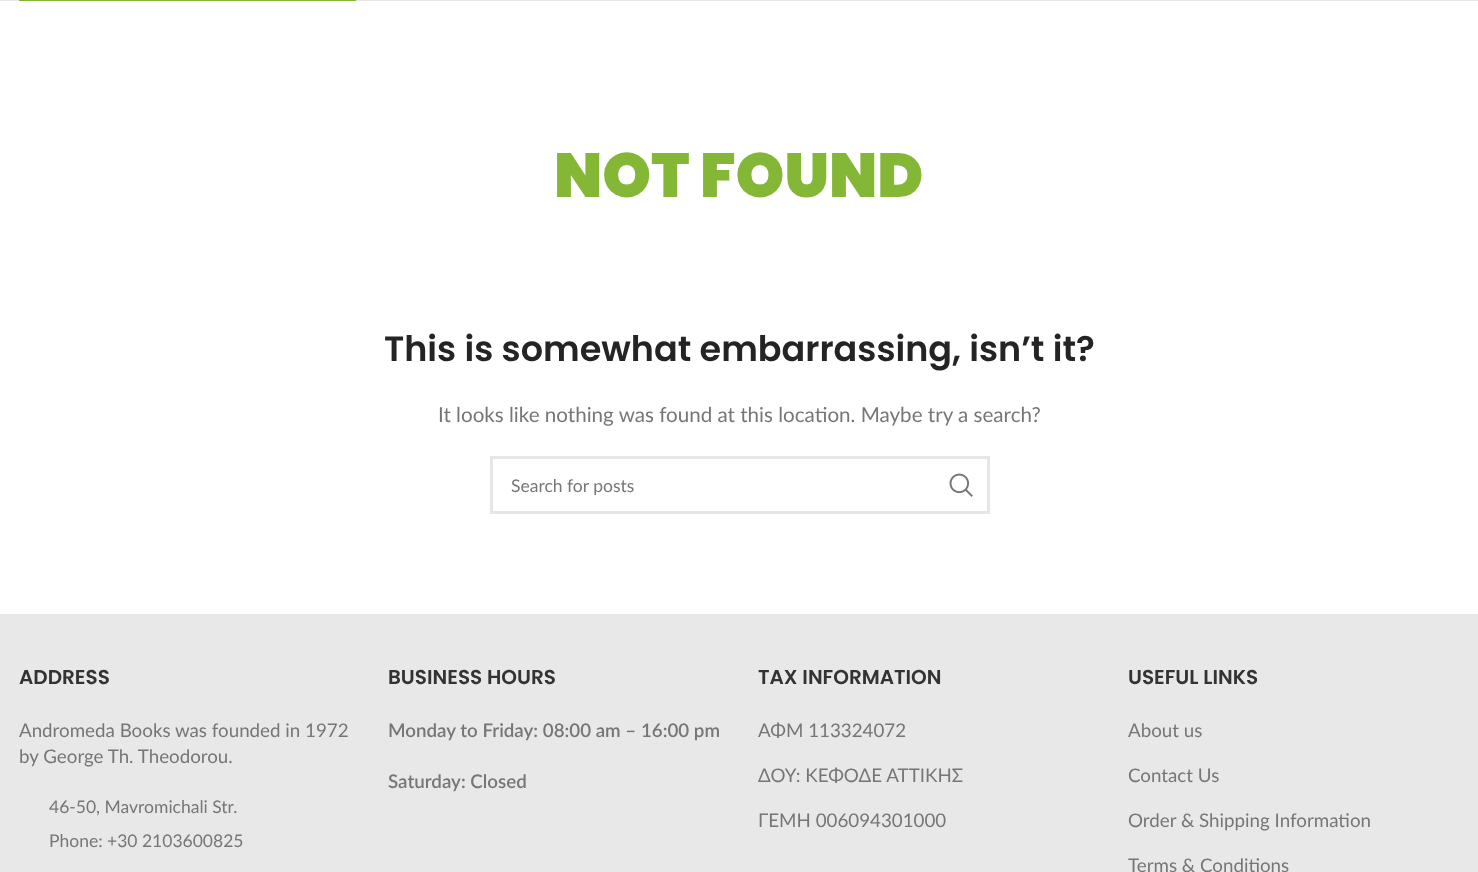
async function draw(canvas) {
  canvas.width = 1478;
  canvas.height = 872;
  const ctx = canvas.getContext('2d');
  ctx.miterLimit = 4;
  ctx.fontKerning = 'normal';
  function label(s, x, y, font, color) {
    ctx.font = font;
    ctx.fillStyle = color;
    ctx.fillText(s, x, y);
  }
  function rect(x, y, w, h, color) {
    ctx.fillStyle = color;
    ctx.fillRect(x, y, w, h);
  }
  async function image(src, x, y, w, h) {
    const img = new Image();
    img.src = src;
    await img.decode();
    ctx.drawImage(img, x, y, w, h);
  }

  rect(0, 0, 1478, 872, '#fff');
  rect(0, 0, 1478, 1, '#e8e8e8');
  rect(19, 0, 337, 1, '#83b735');
  label('NOT FOUND', 554, 197, '900 62px Poppins', '#83b735');
  label('This is somewhat embarrassing, isn’t it?', 384, 361, '600 35px Poppins', '#242424');
  label('It looks like nothing was found at this location. Maybe try a search?', 438, 422, '20.6px Lato', '#767676');
  ctx.strokeStyle = '#e6e6e6';
  ctx.lineWidth = 3;
  ctx.strokeRect(491.5, 457.5, 497, 55);
  label('Search for posts', 511, 492, '17.5px Lato', '#767676');
  await image('assets/img1.png', 949, 473, 24, 24);
  rect(0, 614, 1478, 258, '#e8e8e8');
  label('ADDRESS', 19, 684, '600 20px Poppins', '#333');
  label('Andromeda Books was founded in 1972', 19, 737, '18.75px Lato', '#767676');
  label('by George Th. Theodorou.', 19, 763, '18.75px Lato', '#767676');
  label('46-50, Mavromichali Str.', 49, 813, '17.5px Lato', '#767676');
  label('Phone: +30 2103600825', 49, 847, '17.5px Lato', '#767676');
  label('BUSINESS HOURS', 388, 684, '600 20px Poppins', '#333');
  label('Monday to Friday: 08:00 am – 16:00 pm', 388, 737, '600 18.75px Lato', '#767676');
  label('Saturday: Closed', 388, 788, '600 18.75px Lato', '#767676');
  label('TAX INFORMATION', 758, 684, '600 20px Poppins', '#333');
  label('ΑΦΜ 113324072', 758, 737, '18.75px Lato', '#767676');
  label('ΔΟΥ: ΚΕΦΟΔΕ ΑΤΤΙΚΗΣ', 758, 782, '18.75px Lato', '#767676');
  label('ΓΕΜΗ 006094301000', 758, 827, '18.75px Lato', '#767676');
  label('USEFUL LINKS', 1128, 684, '600 20px Poppins', '#333');
  label('About us', 1128, 737, '18.75px Lato', '#767676');
  label('Contact Us', 1128, 782, '18.75px Lato', '#767676');
  label('Order & Shipping Information', 1128, 827, '18.75px Lato', '#767676');
  label('Terms & Conditions', 1128, 872, '18.75px Lato', '#767676');
}

draw(document.querySelector('canvas'));
